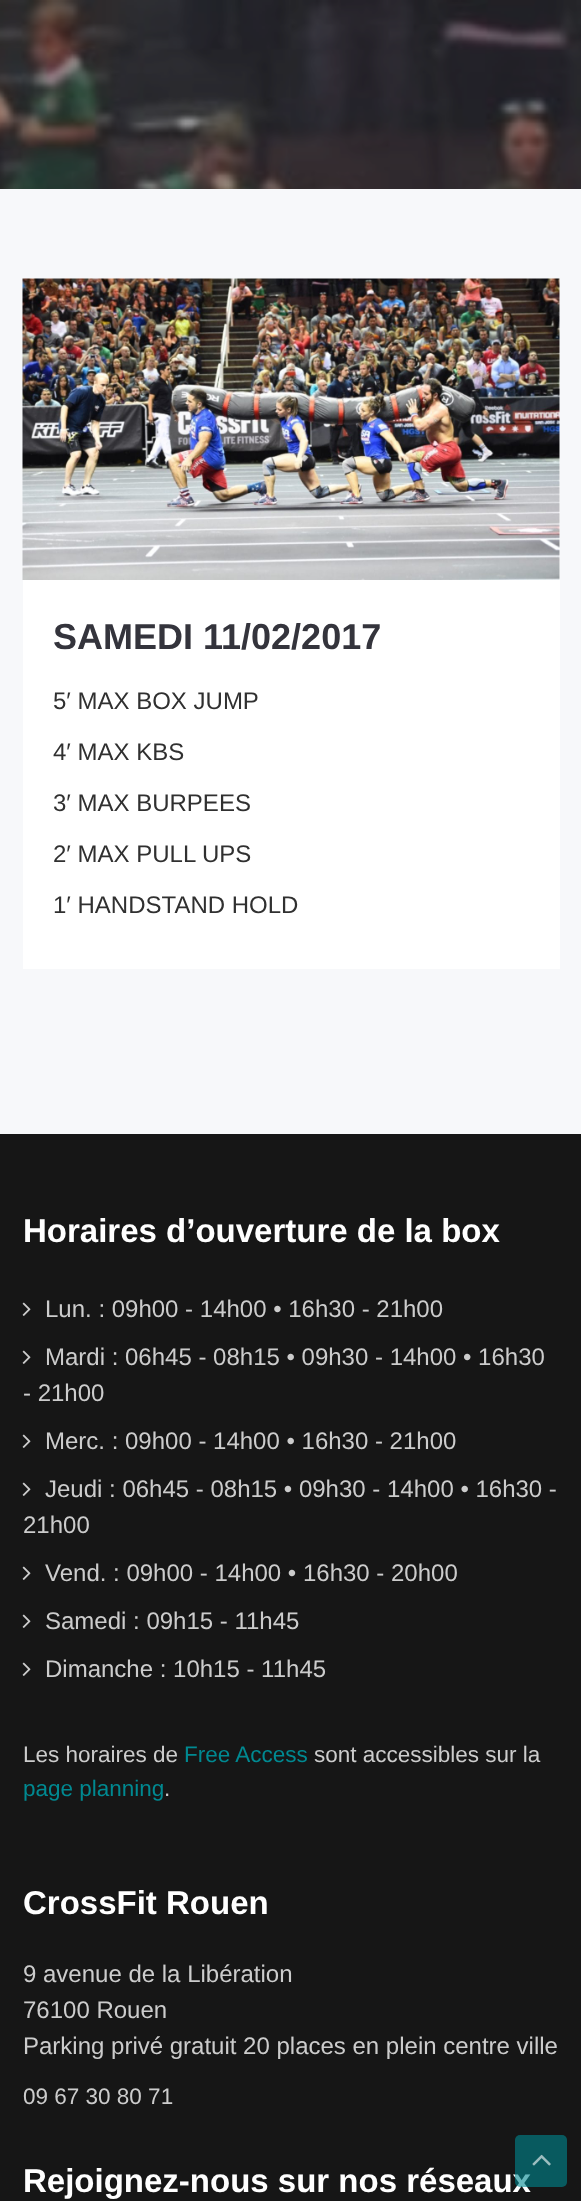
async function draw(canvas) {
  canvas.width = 581;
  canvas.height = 2201;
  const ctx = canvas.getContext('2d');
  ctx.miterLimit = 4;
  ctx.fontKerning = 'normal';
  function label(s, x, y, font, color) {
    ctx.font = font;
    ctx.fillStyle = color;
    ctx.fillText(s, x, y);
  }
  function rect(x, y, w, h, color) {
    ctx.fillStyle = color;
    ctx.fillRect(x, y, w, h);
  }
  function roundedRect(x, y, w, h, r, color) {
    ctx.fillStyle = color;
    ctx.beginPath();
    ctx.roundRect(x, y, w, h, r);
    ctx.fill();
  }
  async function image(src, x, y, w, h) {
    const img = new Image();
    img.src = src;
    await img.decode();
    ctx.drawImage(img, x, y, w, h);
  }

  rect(0, 0, 581, 2201, '#f7f8fa');
  await image('assets/img1.png', 0, 0, 581, 189);
  rect(23, 279, 537, 690, '#fff');
  await image('assets/img2.png', 22, 278, 538, 302);
  label('SAMEDI 11/02/2017', 53, 649, 'bold 36px Liberation Sans', '#34343c');
  label('5′ MAX BOX JUMP', 53, 709, '24px Liberation Sans', '#303030');
  label('4′ MAX KBS', 53, 760, '24px Liberation Sans', '#303030');
  label('3′ MAX BURPEES', 53, 811, '24px Liberation Sans', '#303030');
  label('2′ MAX PULL UPS', 53, 862, '24px Liberation Sans', '#303030');
  label('1′ HANDSTAND HOLD', 53, 913, '24px Liberation Sans', '#303030');
  rect(0, 1134, 581, 1067, '#161616');
  label('Horaires d’ouverture de la box', 23, 1242, 'bold 33px Liberation Sans', '#fff');
  await image('assets/img3.png', 22, 1302, 9, 14);
  label('Lun. : 09h00 - 14h00 • 16h30 - 21h00', 45, 1317, '24px Liberation Sans', '#ccc');
  await image('assets/img3.png', 22, 1350, 9, 14);
  label('Mardi : 06h45 - 08h15 • 09h30 - 14h00 • 16h30', 45, 1365, '24px Liberation Sans', '#ccc');
  label('- 21h00', 23, 1401, '24px Liberation Sans', '#ccc');
  await image('assets/img3.png', 22, 1434, 9, 14);
  label('Merc. : 09h00 - 14h00 • 16h30 - 21h00', 45, 1449, '24px Liberation Sans', '#ccc');
  await image('assets/img3.png', 22, 1482, 9, 14);
  label('Jeudi : 06h45 - 08h15 • 09h30 - 14h00 • 16h30 -', 45, 1497, '24px Liberation Sans', '#ccc');
  label('21h00', 23, 1533, '24px Liberation Sans', '#ccc');
  await image('assets/img3.png', 22, 1566, 9, 14);
  label('Vend. : 09h00 - 14h00 • 16h30 - 20h00', 45, 1581, '24px Liberation Sans', '#ccc');
  await image('assets/img3.png', 22, 1614, 9, 14);
  label('Samedi : 09h15 - 11h45', 45, 1629, '24px Liberation Sans', '#ccc');
  await image('assets/img3.png', 22, 1662, 9, 14);
  label('Dimanche : 10h15 - 11h45', 45, 1677, '24px Liberation Sans', '#ccc');
  label('Les horaires de', 23, 1762, '22.5px Liberation Sans', '#ccc');
  label('Free Access', 184, 1762, '22.5px Liberation Sans', '#008991');
  label('sont accessibles sur la', 314, 1762, '22.5px Liberation Sans', '#ccc');
  label('page planning', 23, 1796, '22.5px Liberation Sans', '#008991');
  label('.', 164, 1796, '22.5px Liberation Sans', '#ccc');
  label('CrossFit Rouen', 23, 1914, 'bold 33px Liberation Sans', '#fff');
  label('9 avenue de la Libération', 23, 1982, '24px Liberation Sans', '#ccc');
  label('76100 Rouen', 23, 2018, '24px Liberation Sans', '#ccc');
  label('Parking privé gratuit 20 places en plein centre ville', 23, 2054, '24px Liberation Sans', '#ccc');
  label('09 67 30 80 71', 23, 2104, '22.5px Liberation Sans', '#ccc');
  label('Rejoignez-nous sur nos réseaux', 23, 2192, 'bold 33px Liberation Sans', '#fff');
  roundedRect(515, 2135, 52, 52, 5, '#00899199');
  await image('assets/img4.png', 532, 2154, 19, 12);
}

draw(document.querySelector('canvas'));
